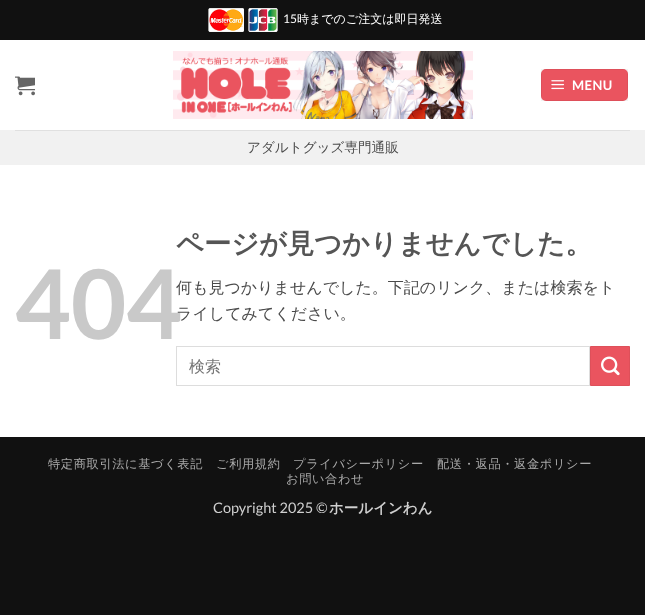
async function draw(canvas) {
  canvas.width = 645;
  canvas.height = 615;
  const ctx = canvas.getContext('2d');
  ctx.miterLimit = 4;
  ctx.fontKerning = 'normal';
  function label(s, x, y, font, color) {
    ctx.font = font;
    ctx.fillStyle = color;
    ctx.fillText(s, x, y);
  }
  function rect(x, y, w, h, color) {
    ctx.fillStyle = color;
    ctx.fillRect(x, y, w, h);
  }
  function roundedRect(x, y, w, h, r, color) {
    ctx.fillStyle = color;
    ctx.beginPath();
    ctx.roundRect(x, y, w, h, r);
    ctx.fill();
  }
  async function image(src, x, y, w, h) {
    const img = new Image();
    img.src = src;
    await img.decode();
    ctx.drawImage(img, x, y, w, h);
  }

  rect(0, 0, 645, 615, '#111');
  rect(0, 40, 645, 397, '#fff');
  await image('assets/img1.png', 208, 8, 70, 24);
  label('15', 283, 23, '12px Lato', '#fff');
  label('時までのご注文は即日発送', 297, 23, '500 12px WenQuanYi Zen Hei', '#fff');
  await image('assets/img2.png', 15, 76, 20, 20);
  await image('assets/img3.png', 173, 51, 300, 68);
  roundedRect(541, 69, 87, 32, 5, '#ea545f');
  ctx.strokeStyle = '#0000000d';
  ctx.strokeRect(541.5, 69.5, 86, 31);
  await image('assets/img4.png', 551, 80, 13, 10);
  ctx.letterSpacing = '0.5px';
  label('MENU', 572, 90, 'bold 13px Lato', '#fff');
  rect(0, 130, 645, 35, '#f1f1f1');
  rect(15, 130, 615, 1, '#e0e0e0');
  ctx.letterSpacing = '0px';
  label('アダルトグッズ専門通販', 247, 152, '500 13.6px WenQuanYi Zen Hei', '#4a4a4a');
  label('404', 15, 339, 'bold 96px Lato', '#c9c9c9');
  label('ページが見つかりませんでした。', 176, 253, 'bold 27.25px WenQuanYi Zen Hei', '#555');
  label('何も見つかりませんでした。下記のリンク、または検索をト', 176, 293, '500 16px WenQuanYi Zen Hei', '#4a4a4a');
  label('ライしてみてください。', 176, 319, '500 16px WenQuanYi Zen Hei', '#4a4a4a');
  ctx.strokeStyle = '#ddd';
  ctx.strokeRect(176.5, 346.5, 413, 39);
  label('検索', 189, 372, '500 16px WenQuanYi Zen Hei', '#757575');
  ctx.fillStyle = '#ea545f';
  ctx.beginPath();
  ctx.rect(590.5, 346.5, 39, 39);
  ctx.fill();
  ctx.strokeStyle = '#de505a';
  ctx.stroke();
  await image('assets/img5.png', 601, 356, 19, 20);
  ctx.letterSpacing = '0.6px';
  label('特定商取引法に基づく表記', 48, 468, '500 12.25px WenQuanYi Zen Hei', '#a9a9a9');
  label('ご利用規約', 216, 468, '500 12.25px WenQuanYi Zen Hei', '#a9a9a9');
  label('プライバシーポリシー', 293, 468, '500 12.25px WenQuanYi Zen Hei', '#a9a9a9');
  label('配送・返品・返金ポリシー', 437, 468, '500 12.25px WenQuanYi Zen Hei', '#a9a9a9');
  label('お問い合わせ', 286, 483, '500 12.25px WenQuanYi Zen Hei', '#a9a9a9');
  ctx.letterSpacing = '0px';
  label('Copyright 2025 ©', 213, 513, '14.5px Lato', '#cfcfcf');
  label('ホールインわん', 329, 513, 'bold 14.5px WenQuanYi Zen Hei', '#cfcfcf');
}

draw(document.querySelector('canvas'));
